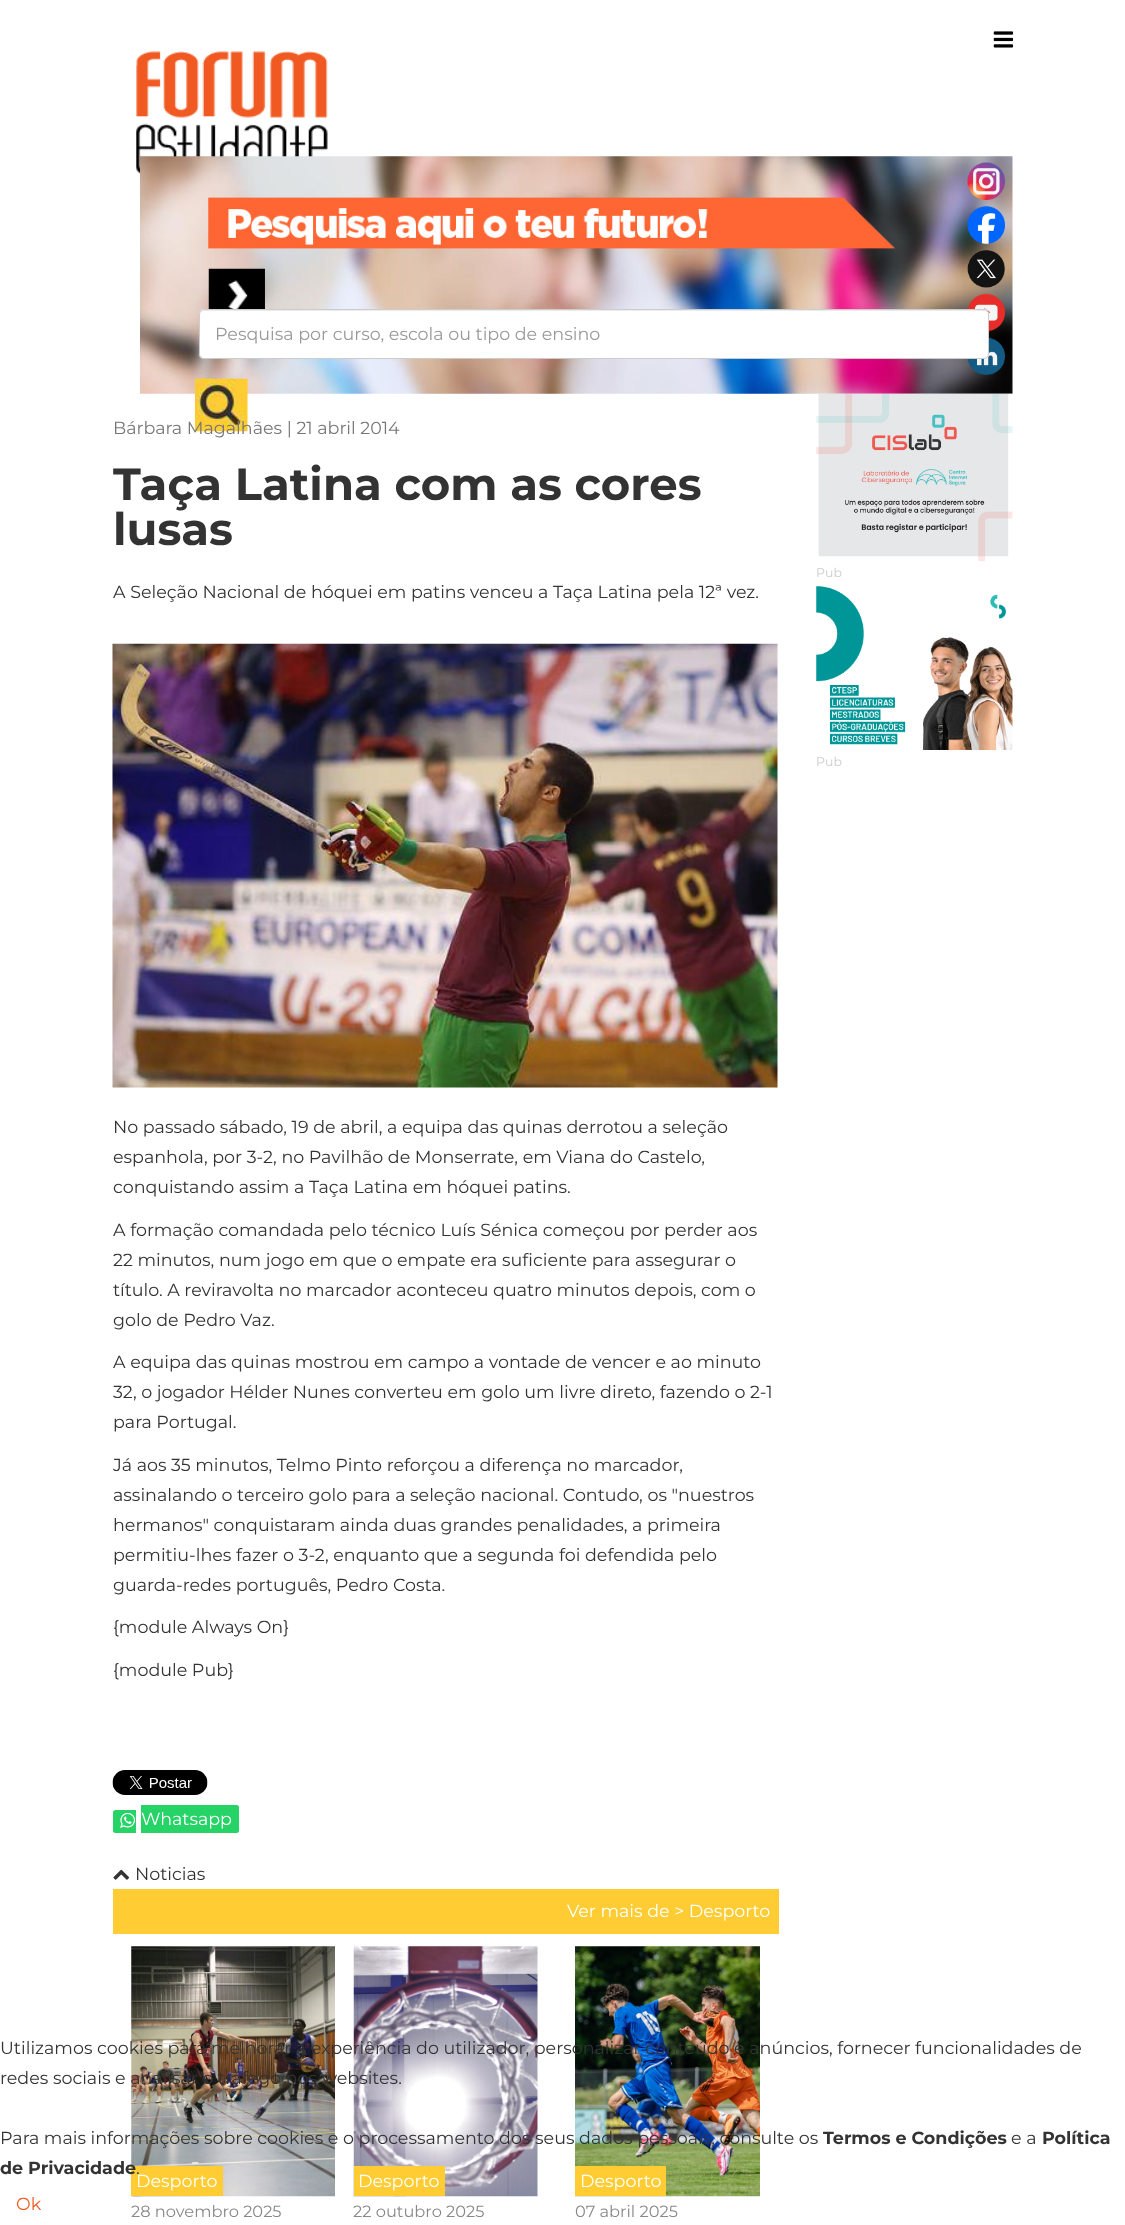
async function draw(canvas) {
  canvas.width = 1125;
  canvas.height = 2225;
  const ctx = canvas.getContext('2d');
  ctx.miterLimit = 4;
  ctx.fontKerning = 'normal';
  function label(s, x, y, font, color) {
    ctx.font = font;
    ctx.fillStyle = color;
    ctx.fillText(s, x, y);
  }
  function rect(x, y, w, h, color) {
    ctx.fillStyle = color;
    ctx.fillRect(x, y, w, h);
  }
  function roundedRect(x, y, w, h, r, color) {
    ctx.fillStyle = color;
    ctx.beginPath();
    ctx.roundRect(x, y, w, h, r);
    ctx.fill();
  }
  async function image(src, x, y, w, h) {
    const img = new Image();
    img.src = src;
    await img.decode();
    ctx.drawImage(img, x, y, w, h);
  }
  let path;

  rect(0, 0, 1125, 2225, '#fff');
  await image('assets/img1.png', 993, 31, 21, 17);
  await image('assets/img2.png', 136, 51, 192, 125);
  await image('assets/img3.png', 140, 156, 873, 238);
  await image('assets/img4.png', 208, 197, 687, 52);
  await image('assets/img5.png', 967, 162, 38, 38);
  await image('assets/img6.png', 967, 206, 38, 38);
  await image('assets/img7.png', 967, 250, 38, 38);
  await image('assets/img8.png', 967, 293, 38, 39);
  await image('assets/img9.png', 967, 337, 38, 38);
  await image('assets/img10.png', 208, 268, 57, 41);
  roundedRect(199, 309, 790, 50, 5, '#fff');
  ctx.fillStyle = '#ececec';
  path = new Path2D('M204 311H984C986 311 988 313 988 315V314C988 312 986 310 984 310H204C202 310 200 312 200 314V315C200 313 202 311 204 311Z');
  ctx.fill(path);
  ctx.beginPath();
  ctx.roundRect(199.5, 309.5, 789, 49, 4.5);
  ctx.strokeStyle = '#ccc';
  ctx.stroke();
  label('Pesquisa por curso, escola ou tipo de ensino', 215, 340, '17.5px Montserrat', '#999');
  await image('assets/img11.png', 195, 378, 53, 54);
  label('Bárbara Magalhães | 21 abril 2014', 113, 434, '17.5px Montserrat', '#777');
  label('Taça Latina com as cores', 113, 500, 'bold 45px Montserrat', '#333');
  label('lusas', 113, 545, 'bold 45px Montserrat', '#333');
  label('A Seleção Nacional de hóquei em patins venceu a Taça Latina pela 12ª vez.', 113, 598, '17.5px Montserrat', '#333');
  await image('assets/img12.png', 112, 643, 666, 445);
  label('No passado sábado, 19 de abril, a equipa das quinas derrotou a seleção', 113, 1133, '17.5px Montserrat', '#333');
  label('espanhola, por 3-2, no Pavilhão de Monserrate, em Viana do Castelo,', 113, 1163, '17.5px Montserrat', '#333');
  label('conquistando assim a Taça Latina em hóquei patins.', 113, 1193, '17.5px Montserrat', '#333');
  label('A formação comandada pelo técnico Luís Sénica começou por perder aos', 113, 1236, '17.5px Montserrat', '#333');
  label('22 minutos, num jogo em que o empate era suficiente para assegurar o', 113, 1266, '17.5px Montserrat', '#333');
  label('título. A reviravolta no marcador aconteceu quatro minutos depois, com o', 113, 1296, '17.5px Montserrat', '#333');
  label('golo de Pedro Vaz.', 113, 1326, '17.5px Montserrat', '#333');
  label('A equipa das quinas mostrou em campo a vontade de vencer e ao minuto', 113, 1368, '17.5px Montserrat', '#333');
  label('32, o jogador Hélder Nunes converteu em golo um livre direto, fazendo o 2-1', 113, 1398, '17.5px Montserrat', '#333');
  label('para Portugal.', 113, 1428, '17.5px Montserrat', '#333');
  label('Já aos 35 minutos, Telmo Pinto reforçou a diferença no marcador,', 113, 1471, '17.5px Montserrat', '#333');
  label('assinalando o terceiro golo para a seleção nacional. Contudo, os "nuestros', 113, 1501, '17.5px Montserrat', '#333');
  label('hermanos" conquistaram ainda duas grandes penalidades, a primeira', 113, 1531, '17.5px Montserrat', '#333');
  label('permitiu-lhes fazer o 3-2, enquanto que a segunda foi defendida pelo', 113, 1561, '17.5px Montserrat', '#333');
  label('guarda-redes português, Pedro Costa.', 113, 1591, '17.5px Montserrat', '#333');
  label('{module Always On}', 113, 1633, '17.5px Montserrat', '#333');
  label('{module Pub}', 113, 1676, '17.5px Montserrat', '#333');
  await image('assets/img13.png', 112, 1770, 96, 25);
  ctx.fillStyle = '#25d366';
  ctx.beginPath();
  ctx.roundRect(113, 1810, 23, 23, [2.5, 0, 0, 2.5]);
  ctx.fill();
  await image('assets/img14.png', 120, 1813, 16, 15);
  ctx.beginPath();
  ctx.roundRect(141, 1805, 98, 28, [0, 2.5, 2.5, 0]);
  ctx.fill();
  label('Whatsapp', 141, 1825, '17.5px Montserrat', '#fff');
  await image('assets/img15.png', 113, 1869, 17, 11);
  label('Noticias', 135, 1880, '17.5px Montserrat', '#333');
  rect(113, 1889, 666, 45, '#fc3');
  label('Ver mais de > Desporto', 567, 1917, '17.5px Montserrat', '#fff');
  await image('assets/img16.png', 131, 1946, 204, 251);
  rect(131, 2166, 92, 30, '#fc3');
  label('Desporto', 136, 2187, '17.5px Montserrat', '#fff');
  label('28 novembro 2025', 131, 2217, '16.25px Montserrat', '#888');
  await image('assets/img17.png', 353, 1946, 185, 251);
  rect(354, 2166, 91, 30, '#fc3');
  label('Desporto', 358, 2187, '17.5px Montserrat', '#fff');
  label('22 outubro 2025', 353, 2217, '16.25px Montserrat', '#888');
  await image('assets/img18.png', 575, 1946, 185, 251);
  rect(575, 2166, 91, 30, '#fc3');
  label('Desporto', 580, 2187, '17.5px Montserrat', '#fff');
  label('07 abril 2025', 575, 2217, '16.25px Montserrat', '#888');
  await image('assets/img19.png', 816, 393, 197, 169);
  label('Pub', 816, 577, '12.5px Montserrat', '#ccc');
  await image('assets/img20.png', 816, 586, 197, 164);
  label('Pub', 816, 766, '12.5px Montserrat', '#ccc');
  label('Utilizamos cookies para melhorar a experiência do utilizador, personalizar conteúdo e anúncios, fornecer funcionalidades de', 0, 2054, '17.5px Montserrat', '#333');
  label('redes sociais e analisar o tráfego nos websites.', 0, 2084, '17.5px Montserrat', '#333');
  label('Para mais informações sobre cookies e o processamento dos seus dados pessoais, consulte os', 0, 2144, '17.5px Montserrat', '#333');
  label('Termos e Condições', 823, 2144, 'bold 17.5px Montserrat', '#333');
  label('e a', 1011, 2144, '17.5px Montserrat', '#333');
  label('Política', 1042, 2144, 'bold 17.5px Montserrat', '#333');
  label('de Privacidade', 0, 2174, 'bold 17.5px Montserrat', '#333');
  label('.', 136, 2174, '17.5px Montserrat', '#333');
  label('Ok', 16, 2210, '17.5px Montserrat', '#ef5c23');
}

draw(document.querySelector('canvas'));
